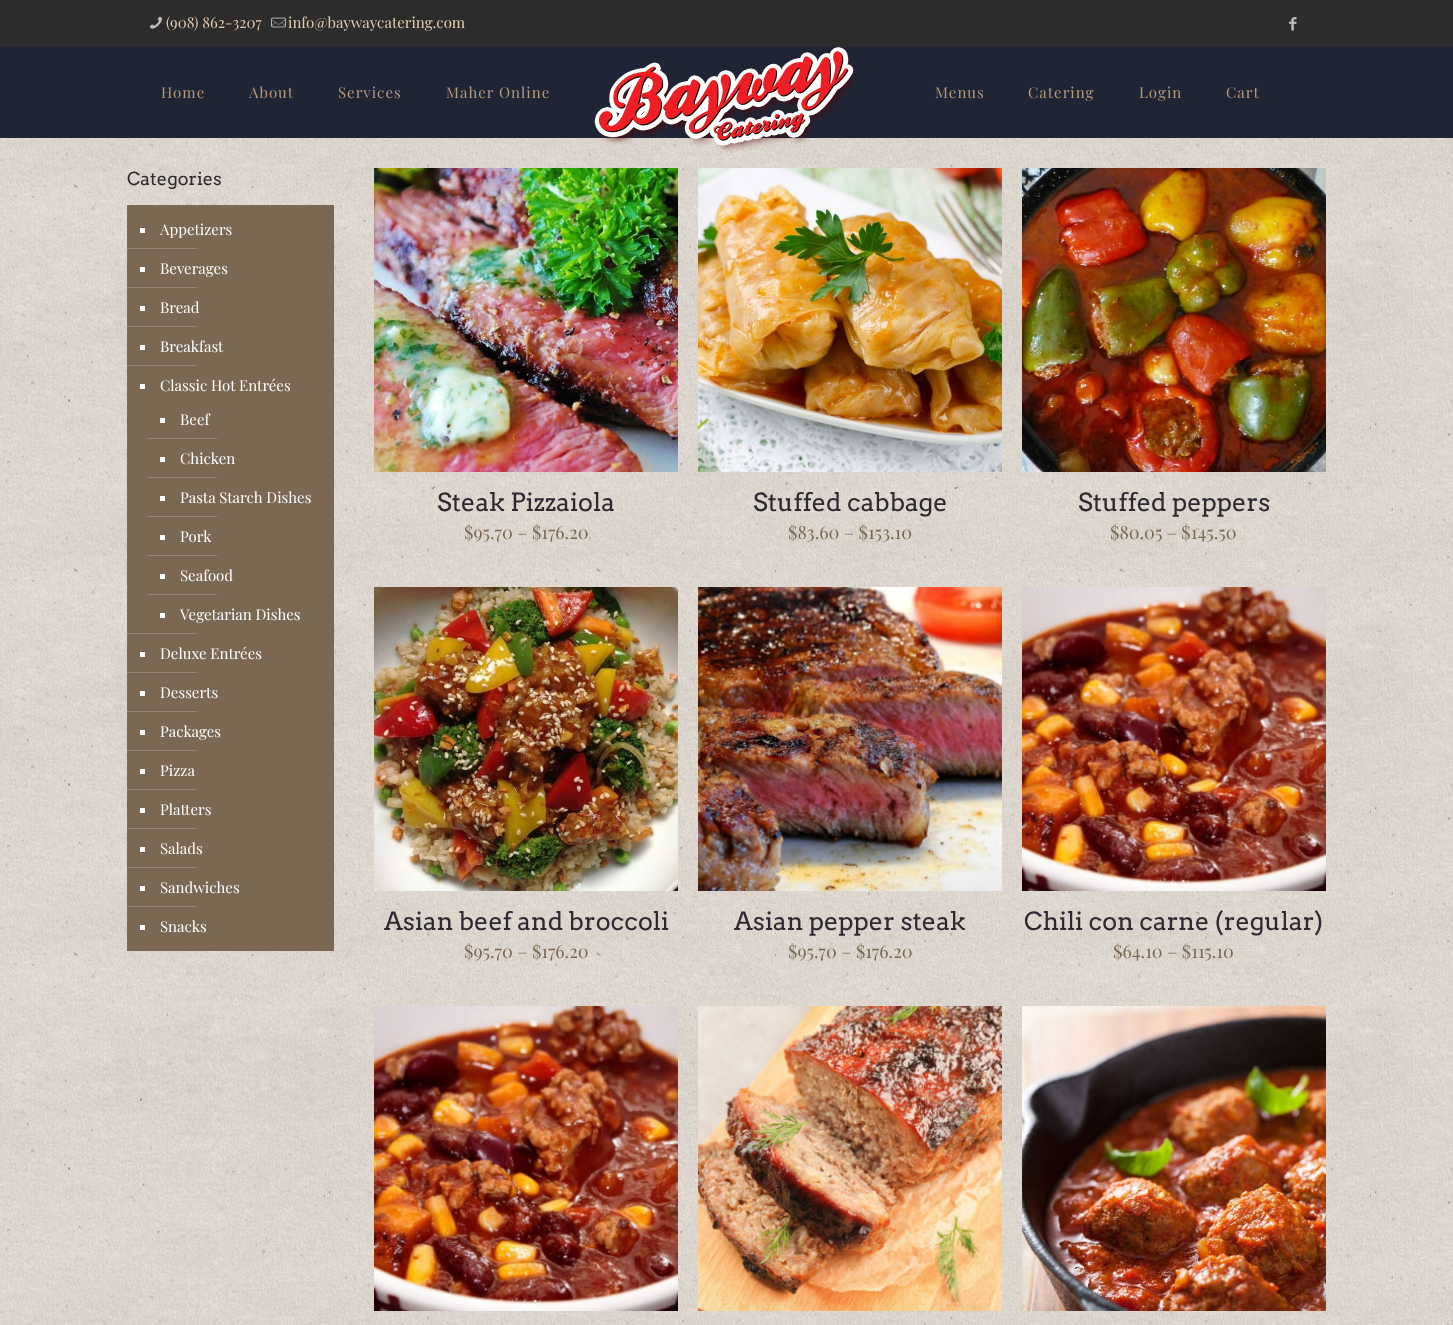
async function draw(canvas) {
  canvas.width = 1453;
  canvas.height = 1325;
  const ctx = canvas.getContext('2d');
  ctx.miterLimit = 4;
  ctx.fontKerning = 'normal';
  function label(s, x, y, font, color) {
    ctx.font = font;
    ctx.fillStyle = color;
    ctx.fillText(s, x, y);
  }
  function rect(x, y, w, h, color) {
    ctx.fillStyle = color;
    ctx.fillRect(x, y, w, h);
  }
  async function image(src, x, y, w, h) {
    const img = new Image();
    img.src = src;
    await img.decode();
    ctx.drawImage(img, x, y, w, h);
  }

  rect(0, 0, 1453, 1325, '#fff');
  await image('assets/img1.png', 0, 138, 1453, 1187);
  rect(0, 0, 1453, 47, '#2c2c2c');
  await image('assets/img2.png', 150, 16, 12, 13);
  label('(908) 862-3207', 166, 28, '15px Playfair Display', '#e5ccb1');
  await image('assets/img3.png', 271, 17, 15, 11);
  label('info@baywaycatering.com', 288, 28, '15px Playfair Display', '#e5ccb1');
  await image('assets/img4.png', 1289, 17, 8, 14);
  rect(0, 47, 1453, 91, '#202536');
  await image('assets/img5.png', 594, 47, 262, 106);
  ctx.letterSpacing = '1px';
  label('Home', 161, 98, '15px Playfair Display', '#b6997b');
  label('About', 249, 98, '15px Playfair Display', '#b6997b');
  label('Services', 338, 98, '15px Playfair Display', '#b6997b');
  label('Maher Online', 446, 98, '15px Playfair Display', '#b6997b');
  label('Menus', 935, 98, '15px Playfair Display', '#b6997b');
  label('Catering', 1028, 98, '15px Playfair Display', '#b6997b');
  label('Login', 1139, 98, '15px Playfair Display', '#b6997b');
  label('Cart', 1226, 98, '15px Playfair Display', '#b6997b');
  ctx.letterSpacing = '0px';
  label('Categories', 127, 185, '18px Arvo', '#2c2930');
  rect(127, 205, 207, 746, '#7b6852');
  rect(140, 228, 5, 5, '#fff');
  label('Appetizers', 160, 235, '15px Playfair Display', '#fff');
  rect(127, 248, 70, 1, '#958675');
  rect(140, 267, 5, 5, '#fff');
  label('Beverages', 160, 274, '15px Playfair Display', '#fff');
  rect(127, 287, 70, 1, '#958675');
  rect(140, 306, 5, 5, '#fff');
  label('Bread', 160, 313, '15px Playfair Display', '#fff');
  rect(127, 326, 70, 1, '#958675');
  rect(140, 345, 5, 5, '#fff');
  label('Breakfast', 160, 352, '15px Playfair Display', '#fff');
  rect(127, 365, 70, 1, '#958675');
  rect(140, 384, 5, 5, '#fff');
  label('Classic Hot Entrées', 160, 391, '15px Playfair Display', '#fff');
  rect(160, 418, 5, 5, '#fff');
  label('Beef', 180, 425, '15px Playfair Display', '#fff');
  rect(147, 438, 70, 1, '#958675');
  rect(160, 457, 5, 5, '#fff');
  label('Chicken', 180, 464, '15px Playfair Display', '#fff');
  rect(147, 477, 70, 1, '#958675');
  rect(160, 496, 5, 5, '#fff');
  label('Pasta Starch Dishes', 180, 503, '15px Playfair Display', '#fff');
  rect(147, 516, 70, 1, '#958675');
  rect(160, 535, 5, 5, '#fff');
  label('Pork', 180, 542, '15px Playfair Display', '#fff');
  rect(147, 555, 70, 1, '#958675');
  rect(160, 574, 5, 5, '#fff');
  label('Seafood', 180, 581, '15px Playfair Display', '#fff');
  rect(147, 594, 70, 1, '#958675');
  rect(160, 613, 5, 5, '#fff');
  label('Vegetarian Dishes', 180, 620, '15px Playfair Display', '#fff');
  rect(127, 633, 70, 1, '#958675');
  rect(140, 652, 5, 5, '#fff');
  label('Deluxe Entrées', 160, 659, '15px Playfair Display', '#fff');
  rect(127, 672, 70, 1, '#958675');
  rect(140, 691, 5, 5, '#fff');
  label('Desserts', 160, 698, '15px Playfair Display', '#fff');
  rect(127, 711, 70, 1, '#958675');
  rect(140, 730, 5, 5, '#fff');
  label('Packages', 160, 737, '15px Playfair Display', '#fff');
  rect(127, 750, 70, 1, '#958675');
  rect(140, 769, 5, 5, '#fff');
  label('Pizza', 160, 776, '15px Playfair Display', '#fff');
  rect(127, 789, 70, 1, '#958675');
  rect(140, 808, 5, 5, '#fff');
  label('Platters', 160, 815, '15px Playfair Display', '#fff');
  rect(127, 828, 70, 1, '#958675');
  rect(140, 847, 5, 5, '#fff');
  label('Salads', 160, 854, '15px Playfair Display', '#fff');
  rect(127, 867, 70, 1, '#958675');
  rect(140, 886, 5, 5, '#fff');
  label('Sandwiches', 160, 893, '15px Playfair Display', '#fff');
  rect(127, 906, 70, 1, '#958675');
  rect(140, 925, 5, 5, '#fff');
  label('Snacks', 160, 932, '15px Playfair Display', '#fff');
  await image('assets/img6.png', 374, 168, 304, 304);
  label('Steak Pizzaiola', 437, 511, '25px Arvo', '#2c2930');
  label('$95.70 – $176.20', 464, 539, '18px Playfair Display', '#7b6852');
  await image('assets/img7.png', 698, 168, 304, 304);
  label('Stuffed cabbage', 753, 511, '25px Arvo', '#2c2930');
  label('$83.60 – $153.10', 788, 539, '18px Playfair Display', '#7b6852');
  await image('assets/img8.png', 1022, 168, 304, 304);
  label('Stuffed peppers', 1078, 511, '25px Arvo', '#2c2930');
  label('$80.05 – $145.50', 1110, 539, '18px Playfair Display', '#7b6852');
  await image('assets/img9.png', 374, 587, 304, 304);
  label('Asian beef and broccoli', 384, 930, '25px Arvo', '#2c2930');
  label('$95.70 – $176.20', 464, 958, '18px Playfair Display', '#7b6852');
  await image('assets/img10.png', 698, 587, 304, 304);
  label('Asian pepper steak', 734, 930, '25px Arvo', '#2c2930');
  label('$95.70 – $176.20', 788, 958, '18px Playfair Display', '#7b6852');
  await image('assets/img11.png', 1022, 587, 304, 304);
  label('Chili con carne (regular)', 1024, 930, '25px Arvo', '#2c2930');
  label('$64.10 – $115.10', 1113, 958, '18px Playfair Display', '#7b6852');
  await image('assets/img12.png', 374, 1006, 304, 305);
  await image('assets/img13.png', 698, 1006, 304, 305);
  await image('assets/img14.png', 1022, 1006, 304, 305);
}

draw(document.querySelector('canvas'));
